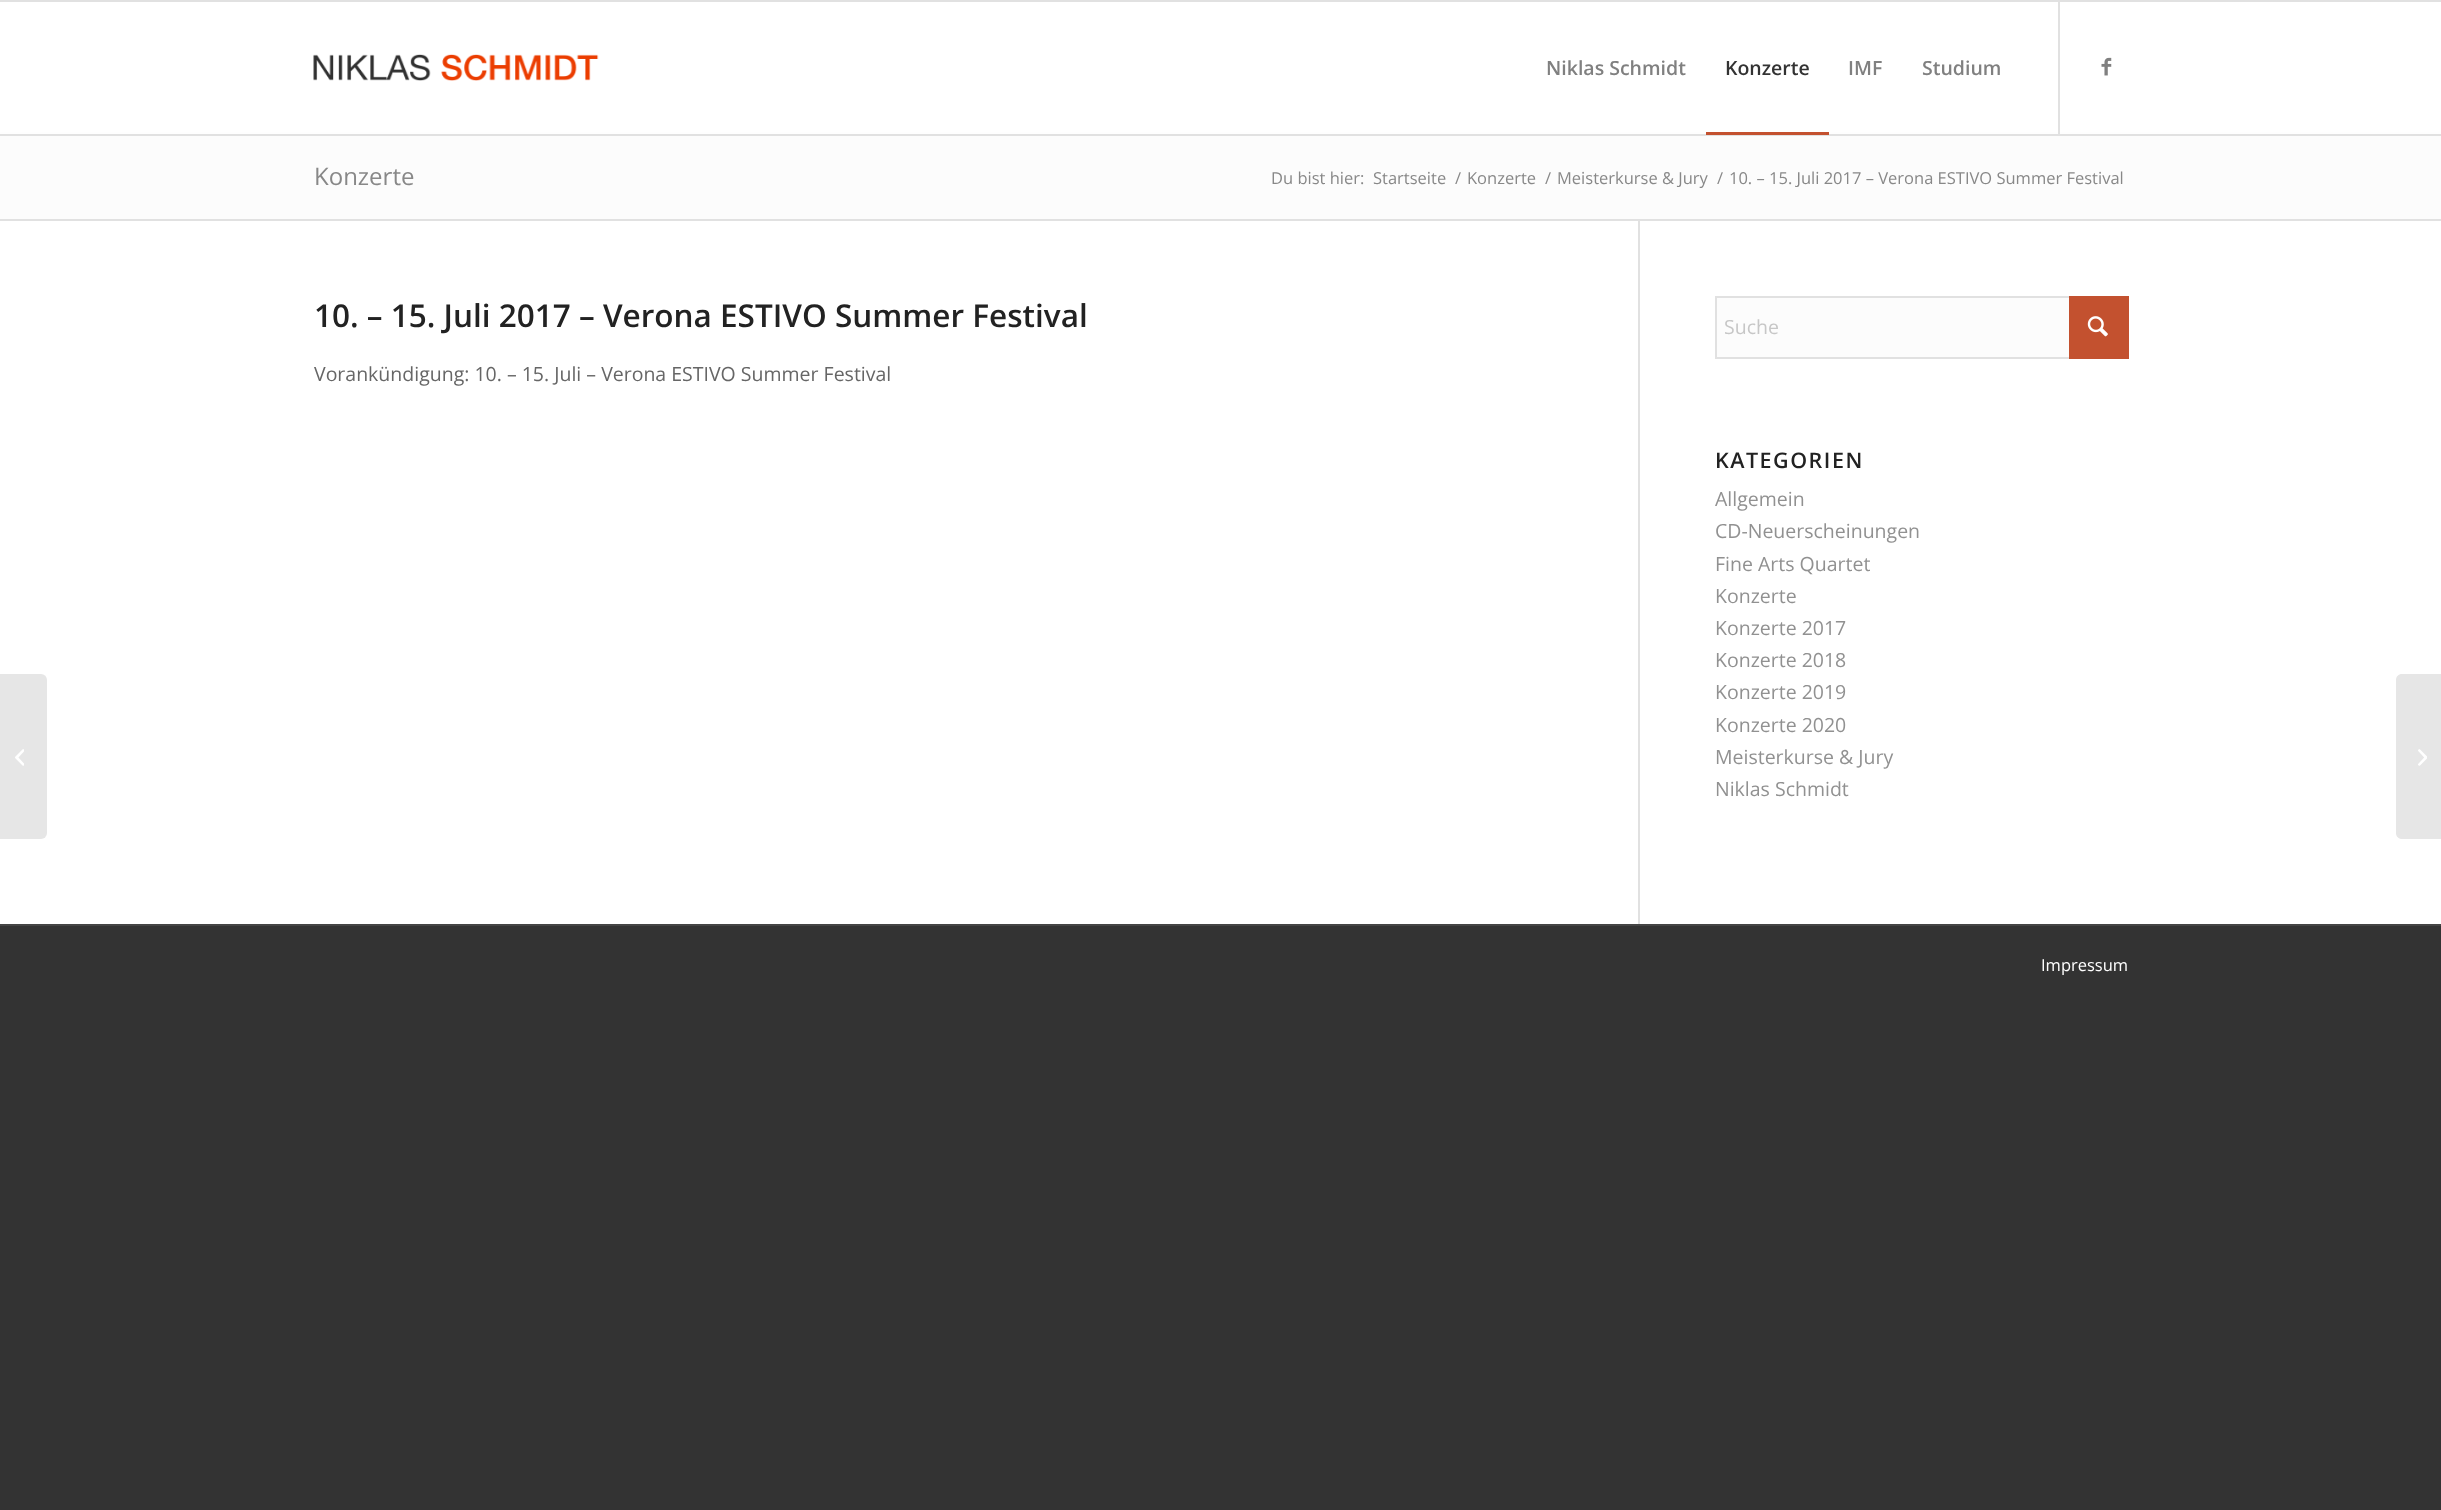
async function draw(canvas) {
  canvas.width = 2441;
  canvas.height = 1510;
  const ctx = canvas.getContext('2d');
  ctx.miterLimit = 4;
  ctx.fontKerning = 'normal';
  function label(s, x, y, font, color) {
    ctx.font = font;
    ctx.fillStyle = color;
    ctx.fillText(s, x, y);
  }
  function rect(x, y, w, h, color) {
    ctx.fillStyle = color;
    ctx.fillRect(x, y, w, h);
  }
  async function image(src, x, y, w, h) {
    const img = new Image();
    img.src = src;
    await img.decode();
    ctx.drawImage(img, x, y, w, h);
  }
  let path;

  rect(0, 0, 2441, 1510, '#333');
  rect(0, 221, 2441, 703, '#fff');
  rect(0, 2, 2441, 130, '#fff');
  rect(0, 0, 2441, 2, '#e1e1e1');
  rect(0, 134, 2441, 2, '#e1e1e1');
  await image('assets/img1.png', 313, 54, 286, 27);
  rect(0, 132, 2441, 2, '#fefefe');
  rect(2058, 2, 2, 132, '#e1e1e1');
  label('Niklas Schmidt', 1546, 75, '600 19.5px Open Sans', '#808080');
  label('Konzerte', 1725, 75, '600 19.5px Open Sans', '#333');
  rect(1706, 132, 123, 3, '#c3512f');
  label('IMF', 1848, 75, '600 19.5px Open Sans', '#808080');
  label('Studium', 1922, 75, '600 19.5px Open Sans', '#808080');
  await image('assets/img2.png', 2101, 57, 11, 19);
  ctx.fillStyle = '#e6e6e6';
  ctx.beginPath();
  ctx.roundRect(0, 674, 47, 165, [0, 6, 6, 0]);
  ctx.fill();
  await image('assets/img3.png', 15, 749, 9, 17);
  rect(0, 136, 2441, 83, '#fcfcfc');
  label('Konzerte', 314, 185, '24px Open Sans', '#888');
  label('Du bist hier:', 1271, 184, '16.5px Open Sans', '#888');
  label('Startseite', 1373, 184, '16.5px Open Sans', '#888');
  label('/', 1455, 184, '16.5px Open Sans', '#888');
  label('Konzerte', 1467, 184, '16.5px Open Sans', '#888');
  label('/', 1545, 184, '16.5px Open Sans', '#888');
  label('Meisterkurse & Jury', 1557, 184, '16.5px Open Sans', '#888');
  label('/', 1717, 184, '16.5px Open Sans', '#888');
  label('10. – 15. Juli 2017 – Verona ESTIVO Summer Festival', 1729, 184, '16.5px Open Sans', '#888');
  rect(0, 219, 2441, 2, '#e1e1e1');
  label('10. – 15. Juli 2017 – Verona ESTIVO Summer Festival', 314, 327, '600 31.5px Open Sans', '#222');
  label('Vorankündigung: 10. – 15. Juli – Verona ESTIVO Summer Festival', 314, 381, '19.5px Open Sans', '#666');
  rect(1638, 221, 2, 705, '#e1e1e1');
  rect(1717, 298, 352, 59, '#fcfcfc');
  ctx.strokeStyle = '#e1e1e1';
  ctx.lineWidth = 2;
  ctx.strokeRect(1716, 297, 412, 61);
  rect(2069, 296, 60, 63, '#c3512f');
  label('Suche', 1724, 334, '19.5px Open Sans', '#c7c7c7');
  await image('assets/img4.png', 2087, 316, 21, 21);
  ctx.letterSpacing = '1.5px';
  label('KATEGORIEN', 1715, 468, '600 21.5px Open Sans', '#222');
  ctx.letterSpacing = '0px';
  label('Allgemein', 1715, 506, '19.5px Open Sans', '#919191');
  label('CD-Neuerscheinungen', 1715, 538, '19.5px Open Sans', '#919191');
  label('Fine Arts Quartet', 1715, 571, '19.5px Open Sans', '#919191');
  label('Konzerte', 1715, 603, '19.5px Open Sans', '#919191');
  label('Konzerte 2017', 1715, 635, '19.5px Open Sans', '#919191');
  label('Konzerte 2018', 1715, 667, '19.5px Open Sans', '#919191');
  label('Konzerte 2019', 1715, 699, '19.5px Open Sans', '#919191');
  label('Konzerte 2020', 1715, 732, '19.5px Open Sans', '#919191');
  label('Meisterkurse & Jury', 1715, 764, '19.5px Open Sans', '#919191');
  label('Niklas Schmidt', 1715, 796, '19.5px Open Sans', '#919191');
  rect(0, 924, 2441, 2, '#444');
  label('Impressum', 2041, 971, '16.5px Open Sans', '#fff');
  ctx.fillStyle = '#e6e6e6';
  path = new Path2D('M2402 674H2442V839H2402C2398.5 839 2396 836.5 2396 833V680C2396 676.5 2398.5 674 2402 674Z');
  ctx.fill(path);
  await image('assets/img5.png', 2418, 749, 9, 17);
}

draw(document.querySelector('canvas'));
